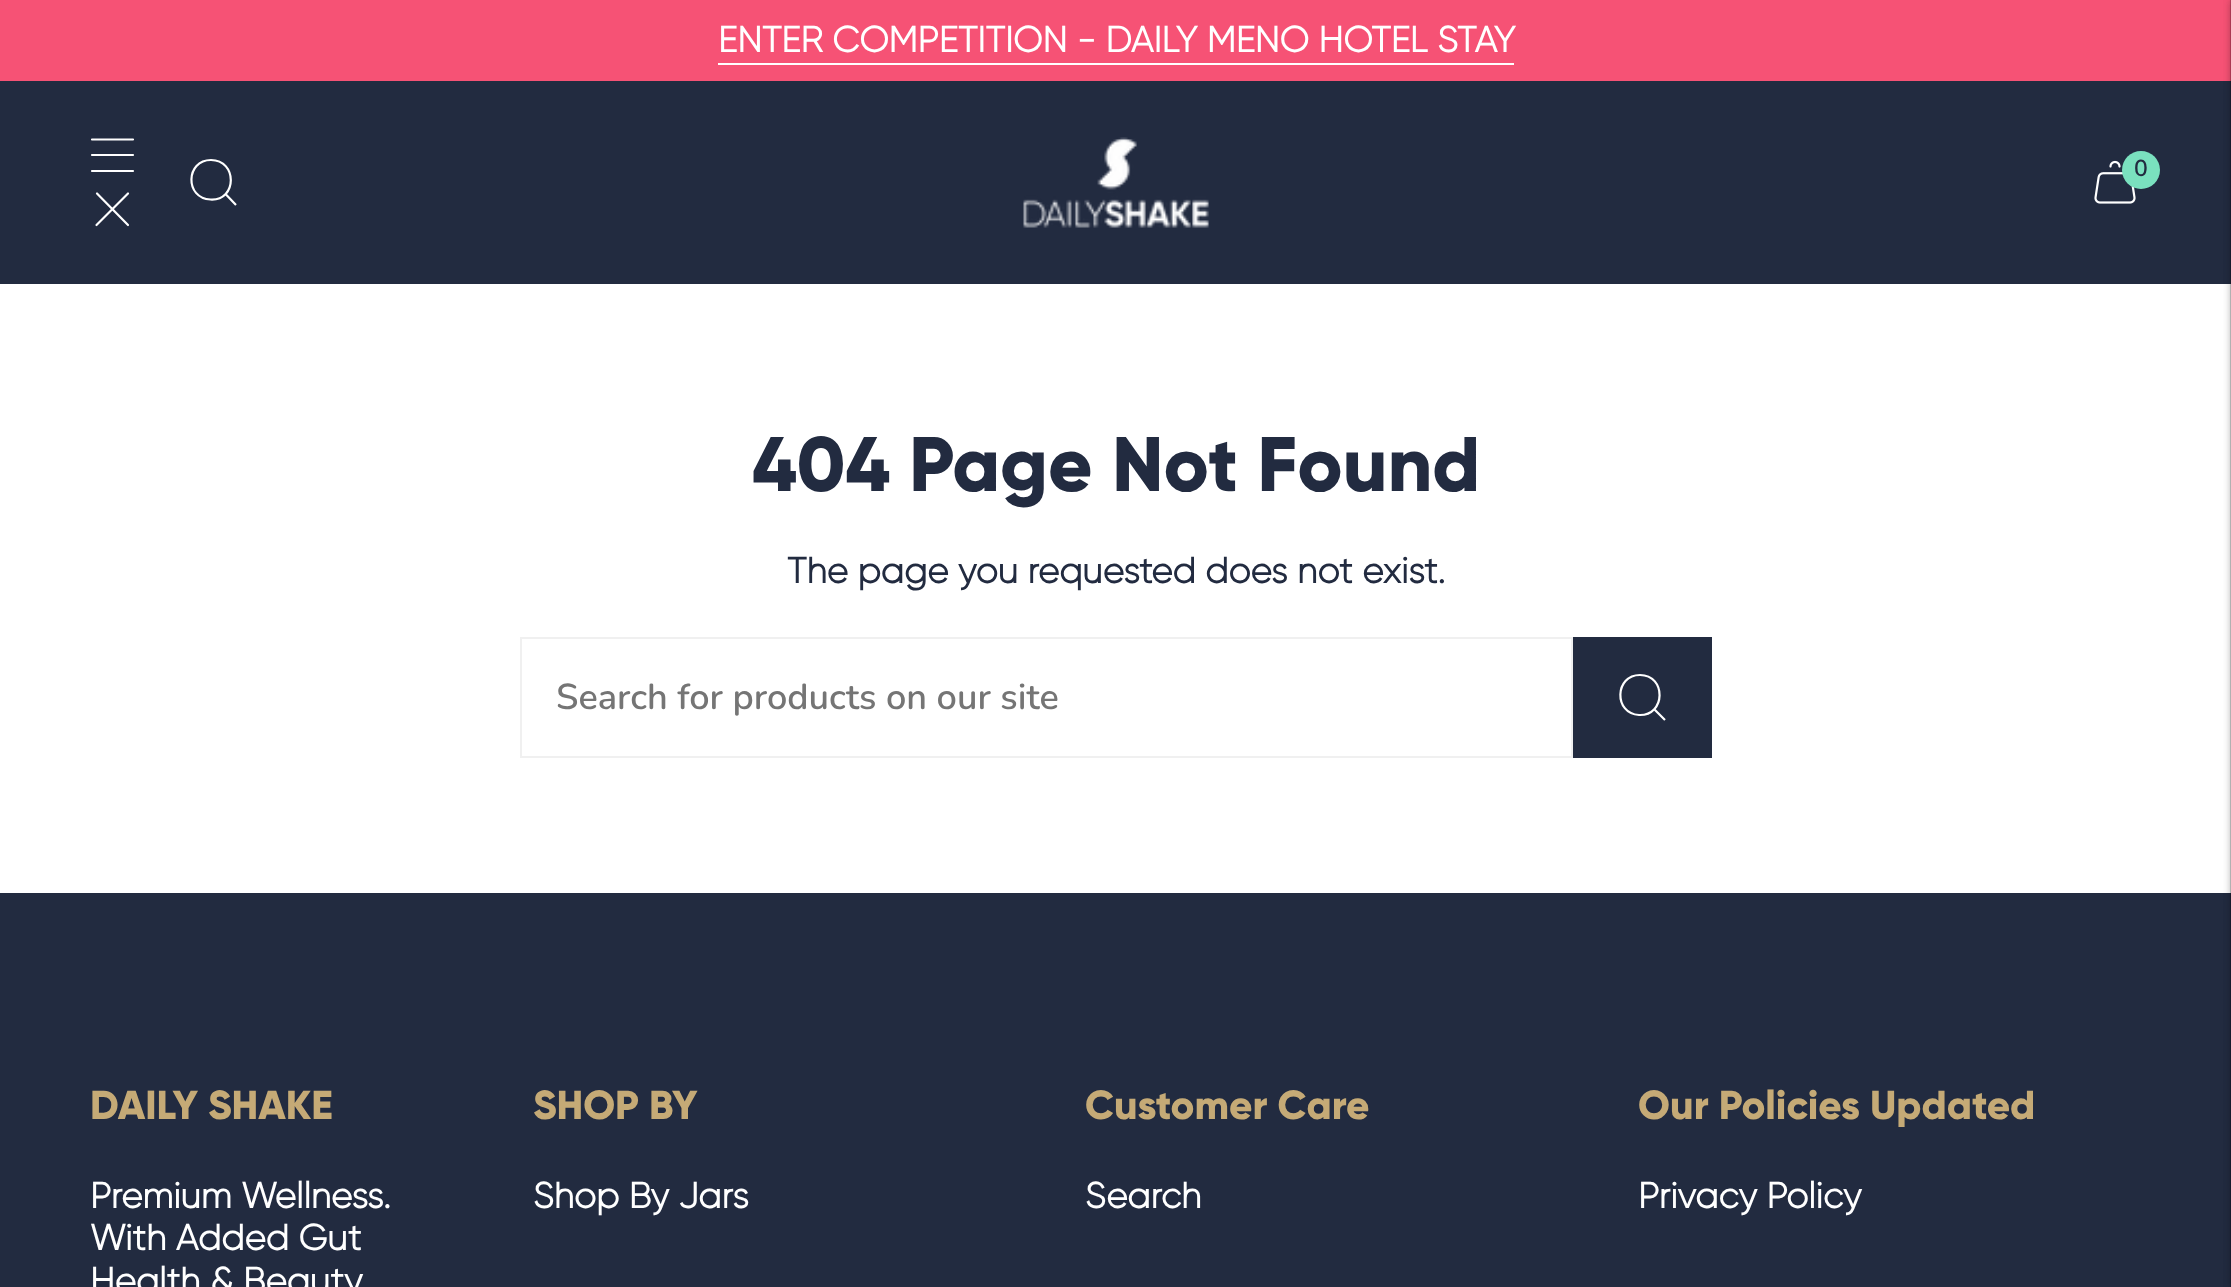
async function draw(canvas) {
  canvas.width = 2231;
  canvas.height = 1287;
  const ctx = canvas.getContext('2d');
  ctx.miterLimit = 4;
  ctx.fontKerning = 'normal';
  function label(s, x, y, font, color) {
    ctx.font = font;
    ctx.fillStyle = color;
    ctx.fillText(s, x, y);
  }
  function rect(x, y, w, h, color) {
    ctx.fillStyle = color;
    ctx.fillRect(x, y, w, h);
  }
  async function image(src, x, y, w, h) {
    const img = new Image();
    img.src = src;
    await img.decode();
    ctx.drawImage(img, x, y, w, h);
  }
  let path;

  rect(0, 0, 2231, 1287, '#fff');
  rect(0, 0, 2231, 81, '#f65275');
  rect(0, 81, 2231, 203, '#222b40');
  rect(0, 893, 2231, 394, '#222b40');
  ctx.strokeStyle = '#00000017';
  ctx.lineWidth = 2;
  ctx.strokeRect(2231, -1, 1, 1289);
  ctx.fillStyle = '#00000036';
  ctx.filter = 'blur(4.5px)';
  ctx.beginPath();
  ctx.rect(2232, 0, 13, 1287);
  ctx.fill();
  ctx.filter = 'none';
  label('ENTER COMPETITION - DAILY MENO HOTEL STAY', 718, 52, 'bold 36px Gilroy', '#fff');
  rect(718, 63, 796, 2, '#fff');
  path = new Path2D('M92 139.5H133M92 155H133M92 171H133');
  ctx.strokeStyle = '#fff';
  ctx.lineWidth = 2.2;
  ctx.lineCap = 'round';
  ctx.lineJoin = 'round';
  ctx.stroke(path);
  path = new Path2D('M128 193.5L96.5 225M97 193.5L128 225');
  ctx.stroke(path);
  path = new Path2D('M211 160C237.5 160 237.5 201 210.5 199.5C184.5 198.5 185.5 160 211 160ZM225.5 194L236 205');
  ctx.lineCap = 'butt';
  ctx.lineJoin = 'miter';
  ctx.stroke(path);
  await image('assets/img1.png', 1023, 137, 186, 91);
  await image('assets/img2.png', 2094, 160, 42, 44);
  ctx.fillStyle = '#7ae1bf';
  ctx.beginPath();
  ctx.arc(2141, 170, 19, 0, 2 * Math.PI);
  ctx.fill();
  label('0', 2134, 176, '600 23px Nunito', '#222b40');
  label('404 Page Not Found', 752, 491, '800 77px Gilroy', '#222b40');
  label('The page you requested does not exist.', 787, 583, 'bold 36px Gilroy', '#222b40');
  ctx.strokeStyle = '#f0f0f0';
  ctx.lineWidth = 2;
  ctx.strokeRect(521, 638, 1051, 119);
  label('Search for products on our site', 556, 709, '600 36px Nunito', '#757575');
  rect(1573, 637, 139, 121, '#222b40');
  path = new Path2D('M1640 675C1666.5 675 1666 716 1639 715C1613.5 713.5 1614.5 675 1640 675ZM1654 709L1665 720');
  ctx.strokeStyle = '#fff';
  ctx.lineWidth = 2.2;
  ctx.stroke(path);
  ctx.strokeStyle = '#00000017';
  ctx.lineWidth = 2;
  ctx.strokeRect(2231, -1, 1, 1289);
  ctx.fillStyle = '#00000036';
  ctx.filter = 'blur(4.5px)';
  ctx.beginPath();
  ctx.rect(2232, 0, 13, 1287);
  ctx.fill();
  ctx.filter = 'none';
  label('DAILY SHAKE', 90, 1119, '800 40.5px Gilroy', '#c5aa76');
  label('Premium Wellness.', 90, 1208, 'bold 36px Gilroy', '#fff');
  label('With Added Gut', 90, 1250, 'bold 36px Gilroy', '#fff');
  label('Health & Beauty', 90, 1293, 'bold 36px Gilroy', '#fff');
  label('SHOP BY', 533, 1119, '800 40.5px Gilroy', '#c5aa76');
  label('Shop By Jars', 533, 1208, 'bold 36px Gilroy', '#fff');
  label('Customer Care', 1085, 1119, '800 40.5px Gilroy', '#c5aa76');
  label('Search', 1085, 1208, 'bold 36px Gilroy', '#fff');
  label('Our Policies Updated', 1638, 1119, '800 40.5px Gilroy', '#c5aa76');
  label('Privacy Policy', 1638, 1208, 'bold 36px Gilroy', '#fff');
}

draw(document.querySelector('canvas'));
